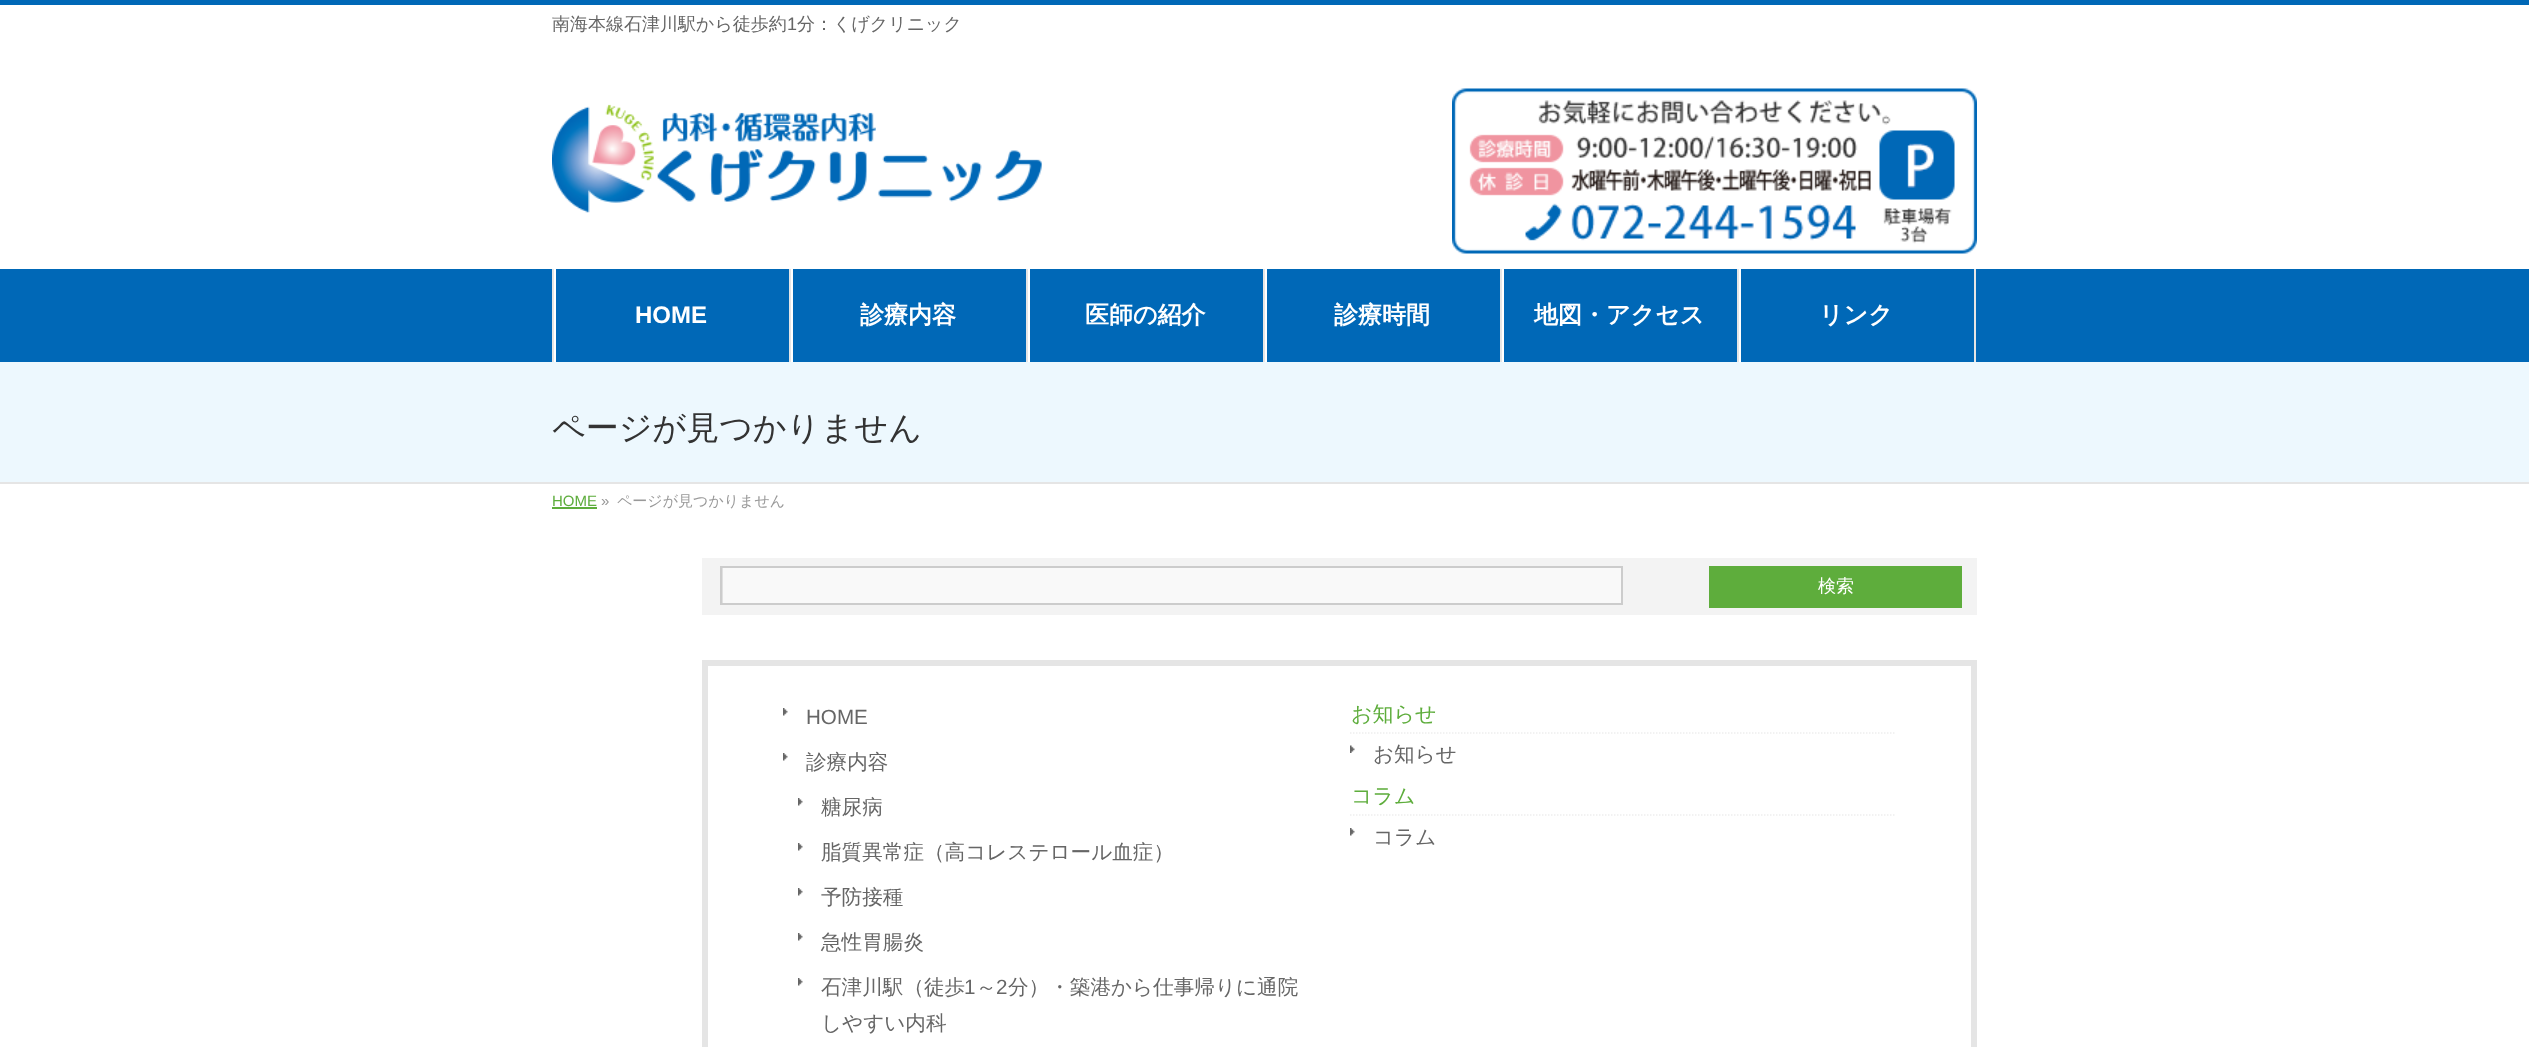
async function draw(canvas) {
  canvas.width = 2529;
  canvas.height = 1047;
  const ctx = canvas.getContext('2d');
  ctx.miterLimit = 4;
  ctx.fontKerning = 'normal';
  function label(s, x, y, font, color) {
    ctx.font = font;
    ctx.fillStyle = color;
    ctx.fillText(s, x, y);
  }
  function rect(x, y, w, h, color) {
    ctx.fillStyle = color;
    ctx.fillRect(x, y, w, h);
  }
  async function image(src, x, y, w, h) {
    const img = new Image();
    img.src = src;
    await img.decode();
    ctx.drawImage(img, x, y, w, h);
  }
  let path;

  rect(0, 0, 2529, 1047, '#fff');
  rect(0, 0, 2529, 5, '#0068b7');
  label('南海本線石津川駅から徒歩約', 552, 30, '500 18px WenQuanYi Zen Hei', '#666');
  label('1', 787, 30, '18px Liberation Sans', '#666');
  label('分：くげクリニック', 797, 30, '500 18px WenQuanYi Zen Hei', '#666');
  await image('assets/img1.png', 552, 104, 490, 109);
  await image('assets/img2.png', 1452, 88, 525, 166);
  rect(0, 269, 2529, 93, '#0068b7');
  rect(552, 269, 2, 93, '#e5e5e5');
  rect(554, 269, 2, 93, '#fff');
  rect(789, 269, 2, 93, '#e5e5e5');
  label('HOME', 635, 323, 'bold 24px Liberation Sans', '#fff');
  rect(791, 269, 2, 93, '#fff');
  rect(1026, 269, 2, 93, '#e5e5e5');
  label('診療内容', 860, 323, 'bold 24px WenQuanYi Zen Hei', '#fff');
  rect(1028, 269, 2, 93, '#fff');
  rect(1263, 269, 2, 93, '#e5e5e5');
  label('医師の紹介', 1085, 323, 'bold 24px WenQuanYi Zen Hei', '#fff');
  rect(1265, 269, 2, 93, '#fff');
  rect(1500, 269, 2, 93, '#e5e5e5');
  label('診療時間', 1334, 323, 'bold 24px WenQuanYi Zen Hei', '#fff');
  rect(1502, 269, 2, 93, '#fff');
  rect(1737, 269, 2, 93, '#e5e5e5');
  label('地図・アクセス', 1534, 323, 'bold 24px WenQuanYi Zen Hei', '#fff');
  rect(1739, 269, 2, 93, '#fff');
  rect(1974, 269, 2, 93, '#e5e5e5');
  label('リンク', 1819, 323, 'bold 24px WenQuanYi Zen Hei', '#fff');
  rect(0, 362, 2529, 120, '#edf8fe');
  rect(0, 482, 2529, 2, '#e5e5e5');
  label('ページが見つかりません', 552, 439, '500 33px WenQuanYi Zen Hei', '#333');
  label('HOME', 552, 506, '15px Liberation Sans', '#5ead3c');
  rect(552, 507, 45, 2, '#5ead3c');
  label('»', 601, 506, '15px Liberation Sans', '#999');
  label('ページが見つかりません', 617, 506, '500 15px WenQuanYi Zen Hei', '#999');
  rect(702, 558, 1275, 57, '#f3f3f3');
  rect(723, 568, 898, 35, '#f9f9f9');
  ctx.save();
  ctx.beginPath();
  ctx.rect(722, 567, 900, 36);
  ctx.clip();
  ctx.fillStyle = '#e0e0e0';
  path = new Path2D('M573 418H1770V752H573ZM723 568H1623V604H723Z');
  ctx.fill(path, 'evenodd');
  ctx.restore();
  ctx.strokeStyle = '#ccc';
  ctx.lineWidth = 2;
  ctx.strokeRect(721, 567, 901, 37);
  rect(1709, 566, 253, 42, '#5ead3c');
  label('検索', 1818, 592, '500 18px WenQuanYi Zen Hei', '#fff');
  ctx.strokeStyle = '#e5e5e5';
  ctx.lineWidth = 6;
  ctx.strokeRect(705, 663, 1269, 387);
  await image('assets/img3.png', 783, 708, 5, 8);
  label('HOME', 806, 724, '20.6px Liberation Sans', '#666');
  await image('assets/img3.png', 783, 753, 5, 8);
  label('診療内容', 806, 769, '500 20.6px WenQuanYi Zen Hei', '#666');
  await image('assets/img3.png', 798, 798, 5, 8);
  label('糖尿病', 821, 814, '500 20.6px WenQuanYi Zen Hei', '#666');
  await image('assets/img3.png', 798, 843, 5, 8);
  label('脂質異常症（高コレステロール血症）', 821, 859, '500 20.6px WenQuanYi Zen Hei', '#666');
  await image('assets/img3.png', 798, 888, 5, 8);
  label('予防接種', 821, 904, '500 20.6px WenQuanYi Zen Hei', '#666');
  await image('assets/img3.png', 798, 933, 5, 8);
  label('急性胃腸炎', 821, 949, '500 20.6px WenQuanYi Zen Hei', '#666');
  await image('assets/img3.png', 798, 978, 5, 8);
  label('石津川駅（徒歩', 821, 994, '500 20.6px WenQuanYi Zen Hei', '#666');
  label('1', 964, 994, '20.6px Liberation Sans', '#666');
  label('～', 976, 994, '500 20.6px WenQuanYi Zen Hei', '#666');
  label('2', 996, 994, '20.6px Liberation Sans', '#666');
  label('分）・築港から仕事帰りに通院', 1008, 994, '500 20.6px WenQuanYi Zen Hei', '#666');
  label('しやすい内科', 821, 1030, '500 20.6px WenQuanYi Zen Hei', '#666');
  path = new Path2D('M1350 733H1896');
  ctx.strokeStyle = '#eee';
  ctx.lineWidth = 1.5;
  ctx.setLineDash([1.5, 1.5]);
  ctx.stroke(path);
  label('お知らせ', 1351, 721, '500 21px WenQuanYi Zen Hei', '#5ead3c');
  await image('assets/img4.png', 1350, 745, 5, 8);
  label('お知らせ', 1373, 761, '500 20.6px WenQuanYi Zen Hei', '#666');
  path = new Path2D('M1350 815H1896');
  ctx.stroke(path);
  label('コラム', 1351, 803, '500 21px WenQuanYi Zen Hei', '#5ead3c');
  await image('assets/img5.png', 1350, 828, 5, 8);
  label('コラム', 1373, 844, '500 20.6px WenQuanYi Zen Hei', '#666');
}

draw(document.querySelector('canvas'));
